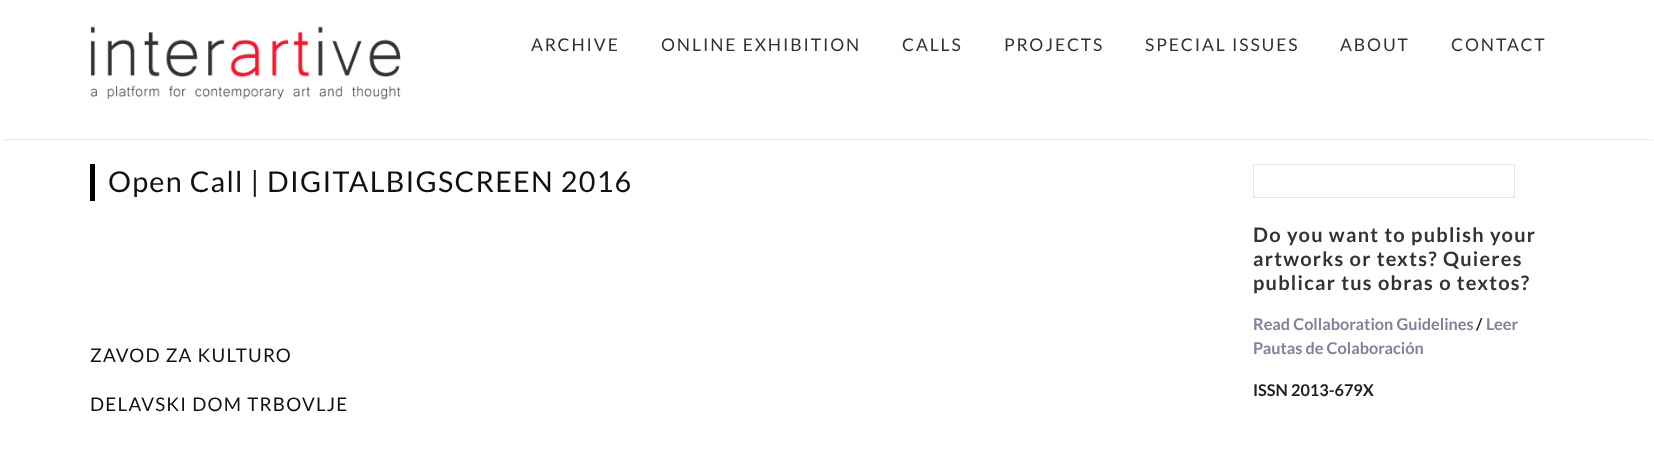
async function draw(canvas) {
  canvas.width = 1654;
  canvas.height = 451;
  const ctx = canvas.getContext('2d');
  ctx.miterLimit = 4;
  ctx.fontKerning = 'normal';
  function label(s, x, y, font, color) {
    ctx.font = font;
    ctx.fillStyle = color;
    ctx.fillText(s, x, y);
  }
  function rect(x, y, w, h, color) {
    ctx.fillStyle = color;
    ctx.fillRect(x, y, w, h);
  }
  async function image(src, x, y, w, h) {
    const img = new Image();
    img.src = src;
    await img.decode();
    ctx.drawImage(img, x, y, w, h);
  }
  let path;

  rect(0, 0, 1654, 451, '#fff');
  ctx.save();
  path = new Path2D('M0 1H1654V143H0ZM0 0H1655V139H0Z');
  ctx.clip(path, 'evenodd');
  ctx.fillStyle = '#ccc';
  ctx.filter = 'blur(1px)';
  ctx.beginPath();
  ctx.rect(3, 5, 1650, 134);
  ctx.fill();
  ctx.filter = 'none';
  ctx.restore();
  await image('assets/img1.png', 90, 26, 311, 74);
  ctx.letterSpacing = '1.9px';
  label('ARCHIVE', 531, 51, '17.5px Lato', '#333');
  label('ONLINE EXHIBITION', 661, 51, '17.5px Lato', '#333');
  label('CALLS', 902, 51, '17.5px Lato', '#333');
  label('PROJECTS', 1004, 51, '17.5px Lato', '#333');
  label('SPECIAL ISSUES', 1145, 51, '17.5px Lato', '#333');
  label('ABOUT', 1340, 51, '17.5px Lato', '#333');
  label('CONTACT', 1451, 51, '17.5px Lato', '#333');
  rect(90, 164, 5, 37, '#000');
  ctx.letterSpacing = '1.25px';
  label('Open Call | DIGITALBIGSCREEN 2016', 108, 192, '28.75px Lato', '#111');
  label('ZAVOD ZA KULTURO', 90, 362, '18.75px Lato', '#111');
  label('DELAVSKI DOM TRBOVLJE', 90, 411, '18.75px Lato', '#111');
  ctx.strokeStyle = '#e5e5e5';
  ctx.strokeRect(1253.5, 164.5, 261, 33);
  label('Do you want to publish your', 1253, 242, 'bold 20px Lato', '#333');
  label('artworks or texts? Quieres', 1253, 266, 'bold 20px Lato', '#333');
  label('publicar tus obras o textos?', 1253, 290, 'bold 20px Lato', '#333');
  ctx.letterSpacing = '0px';
  label('Read Collaboration Guidelines', 1253, 330, 'bold 16.25px Lato', '#857f99');
  label('/', 1476, 330, 'bold 16.25px Lato', '#1e1e1e');
  label('Leer', 1486, 330, 'bold 16.25px Lato', '#857f99');
  label('Pautas de Colaboración', 1253, 354, 'bold 16.25px Lato', '#857f99');
  label('ISSN 2013-679X', 1253, 396, 'bold 16.25px Lato', '#1e1e1e');
}

draw(document.querySelector('canvas'));
